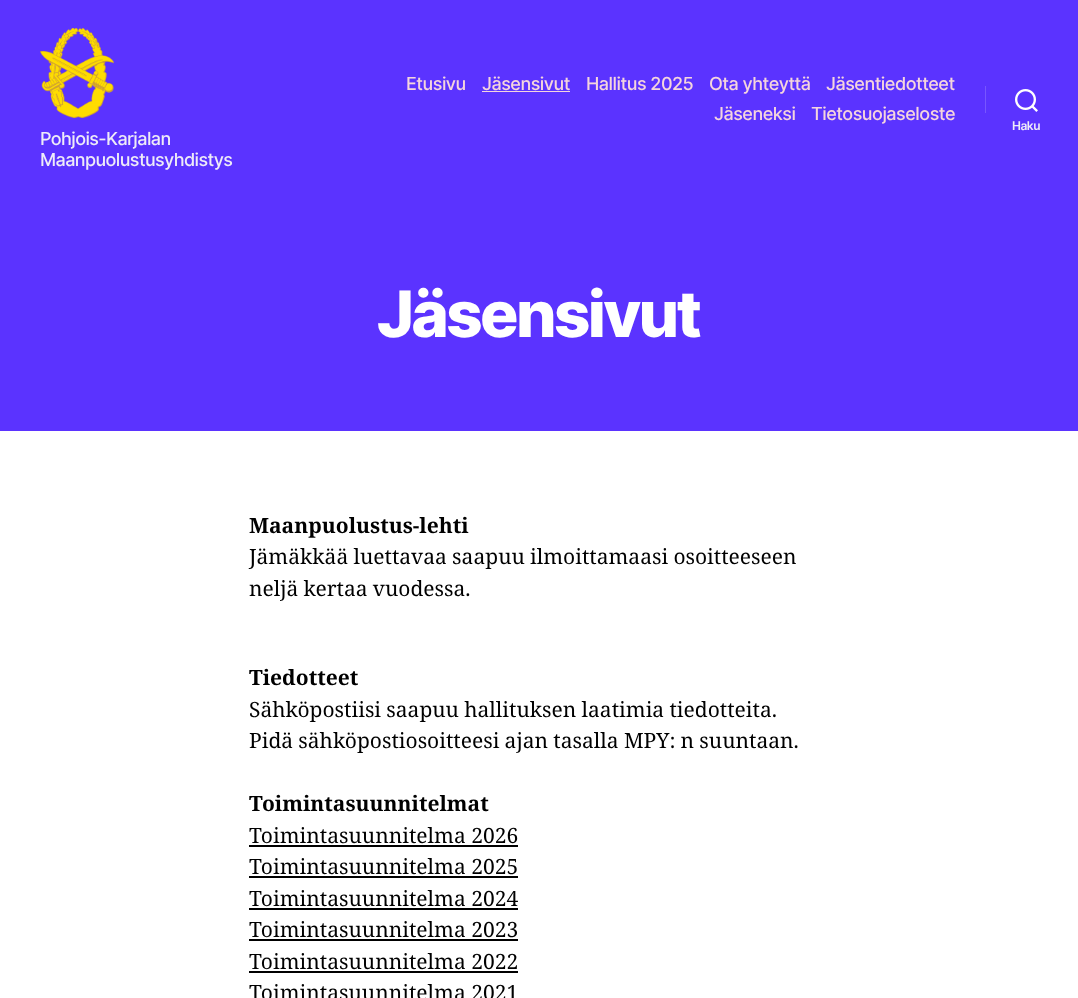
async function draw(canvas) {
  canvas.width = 1078;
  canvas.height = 998;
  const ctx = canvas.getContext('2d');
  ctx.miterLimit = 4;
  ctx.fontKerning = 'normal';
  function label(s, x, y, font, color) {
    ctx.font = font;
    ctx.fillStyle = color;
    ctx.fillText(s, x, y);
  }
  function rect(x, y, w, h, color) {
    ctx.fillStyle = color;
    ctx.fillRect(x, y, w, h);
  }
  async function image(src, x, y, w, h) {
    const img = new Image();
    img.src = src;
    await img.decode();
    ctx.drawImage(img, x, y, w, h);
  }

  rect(0, 0, 1078, 998, '#fff');
  rect(0, 0, 1078, 431, '#5b33ff');
  ctx.letterSpacing = '-0.5px';
  label('Etusivu', 406, 90, '500 18px Inter', '#f5d5dd');
  label('Jäsensivut', 482, 90, '500 18px Inter', '#f5d5dd');
  rect(482, 91, 88, 1, '#f5d5dd');
  label('Hallitus 2025', 586, 90, '500 18px Inter', '#f5d5dd');
  label('Ota yhteyttä', 709, 90, '500 18px Inter', '#f5d5dd');
  label('Jäsentiedotteet', 826, 90, '500 18px Inter', '#f5d5dd');
  label('Jäseneksi', 714, 120, '500 18px Inter', '#f5d5dd');
  label('Tietosuojaseloste', 811, 120, '500 18px Inter', '#f5d5dd');
  rect(985, 86, 1, 27, '#7856ff');
  await image('assets/img1.png', 1015, 89, 23, 23);
  label('Haku', 1012, 130, '600 12px Inter', '#eeebf8');
  await image('assets/img2.png', 40, 28, 74, 90);
  ctx.letterSpacing = '-0.6px';
  label('Pohjois-Karjalan', 40, 145, '500 18px Inter', '#eeebf8');
  label('Maanpuolustusyhdistys', 40, 166, '500 18px Inter', '#eeebf8');
  ctx.letterSpacing = '-2.75px';
  label('Jäsensivut', 377, 337, '800 64px Inter', '#fff');
  ctx.letterSpacing = '0px';
  label('Maanpuolustus-lehti', 249, 533, 'bold 21px Noto Serif', '#000');
  ctx.wordSpacing = '-0.25px';
  label('Jämäkkää luettavaa saapuu ilmoittamaasi osoitteeseen', 249, 564, '21px Noto Serif', '#000');
  label('neljä kertaa vuodessa.', 249, 596, '21px Noto Serif', '#000');
  ctx.wordSpacing = '0px';
  label('Tiedotteet', 249, 685, 'bold 21px Noto Serif', '#000');
  ctx.wordSpacing = '-0.25px';
  label('Sähköpostiisi saapuu hallituksen laatimia tiedotteita.', 249, 717, '21px Noto Serif', '#000');
  label('Pidä sähköpostiosoitteesi ajan tasalla MPY: n suuntaan.', 249, 748, '21px Noto Serif', '#000');
  ctx.wordSpacing = '0px';
  label('Toimintasuunnitelmat', 249, 811, 'bold 21px Noto Serif', '#000');
  label('Toimintasuunnitelma 2026', 249, 843, '21px Noto Serif', '#000');
  rect(249, 845, 269, 2, '#000');
  label('Toimintasuunnitelma 2025', 249, 874, '21px Noto Serif', '#000');
  rect(249, 876, 269, 2, '#000');
  label('Toimintasuunnitelma 2024', 249, 906, '21px Noto Serif', '#000');
  rect(249, 908, 269, 2, '#000');
  label('Toimintasuunnitelma 2023', 249, 937, '21px Noto Serif', '#000');
  rect(249, 939, 269, 2, '#000');
  label('Toimintasuunnitelma 2022', 249, 969, '21px Noto Serif', '#000');
  rect(249, 971, 269, 2, '#000');
  label('Toimintasuunnitelma 2021', 249, 1000, '21px Noto Serif', '#000');
}

draw(document.querySelector('canvas'));
